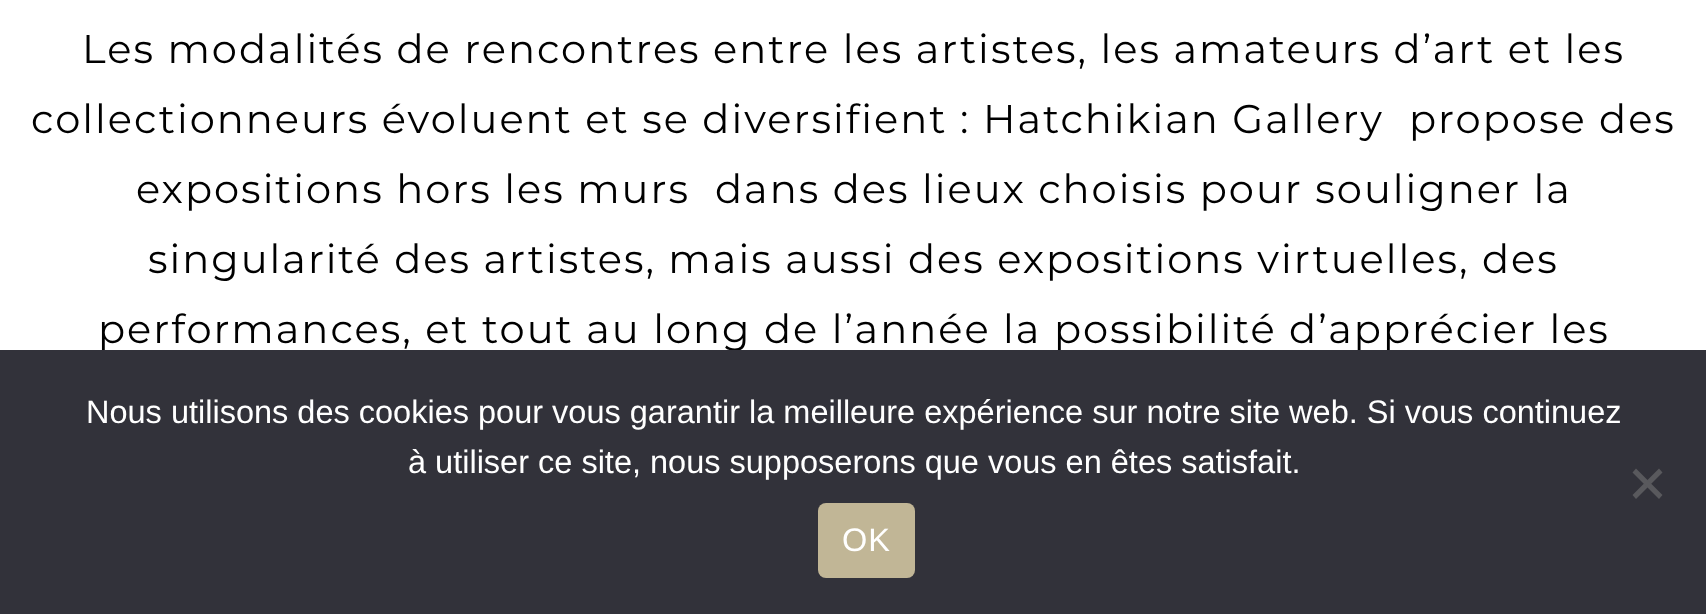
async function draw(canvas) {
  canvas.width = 1706;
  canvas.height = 614;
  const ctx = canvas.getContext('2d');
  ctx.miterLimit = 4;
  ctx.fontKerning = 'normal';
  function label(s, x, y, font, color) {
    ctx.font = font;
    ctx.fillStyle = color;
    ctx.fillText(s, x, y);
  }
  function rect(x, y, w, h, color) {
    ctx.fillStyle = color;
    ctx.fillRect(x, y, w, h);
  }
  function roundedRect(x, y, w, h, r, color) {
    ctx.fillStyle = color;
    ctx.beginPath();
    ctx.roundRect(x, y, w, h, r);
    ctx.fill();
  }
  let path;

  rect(0, 0, 1706, 614, '#fff');
  ctx.letterSpacing = '2px';
  label('Les modalités de rencontres entre les artistes, les amateurs d’art et les', 82, 63, '100 40px Montserrat', '#000');
  label('collectionneurs évoluent et se diversifient : Hatchikian Gallery  propose des', 31, 133, '100 40px Montserrat', '#000');
  label('expositions hors les murs  dans des lieux choisis pour souligner la', 136, 203, '100 40px Montserrat', '#000');
  label('singularité des artistes, mais aussi des expositions virtuelles, des', 148, 273, '100 40px Montserrat', '#000');
  label('performances, et tout au long de l’année la possibilité d’apprécier les', 98, 343, '100 40px Montserrat', '#000');
  rect(0, 350, 1706, 264, '#32323a');
  ctx.letterSpacing = '0px';
  label('Nous utilisons des cookies pour vous garantir la meilleure expérience sur notre site web. Si vous continuez', 86, 423, '32.5px Liberation Sans', '#fff');
  label('à utiliser ce site, nous supposerons que vous en êtes satisfait.', 408, 473, '32.5px Liberation Sans', '#fff');
  ctx.fillStyle = '#59595d';
  path = new Path2D('M1659 468.5L1662.5 472.5L1636 499L1632.5 495Z');
  ctx.fill(path);
  path = new Path2D('M1632.5 472.5L1636 468.5L1662.5 495L1659 499Z');
  ctx.fill(path);
  roundedRect(818, 503, 97, 75, 8, '#c1b696');
  ctx.letterSpacing = '1px';
  label('OK', 842, 551, '32.5px Liberation Sans', '#fff');
}

draw(document.querySelector('canvas'));
